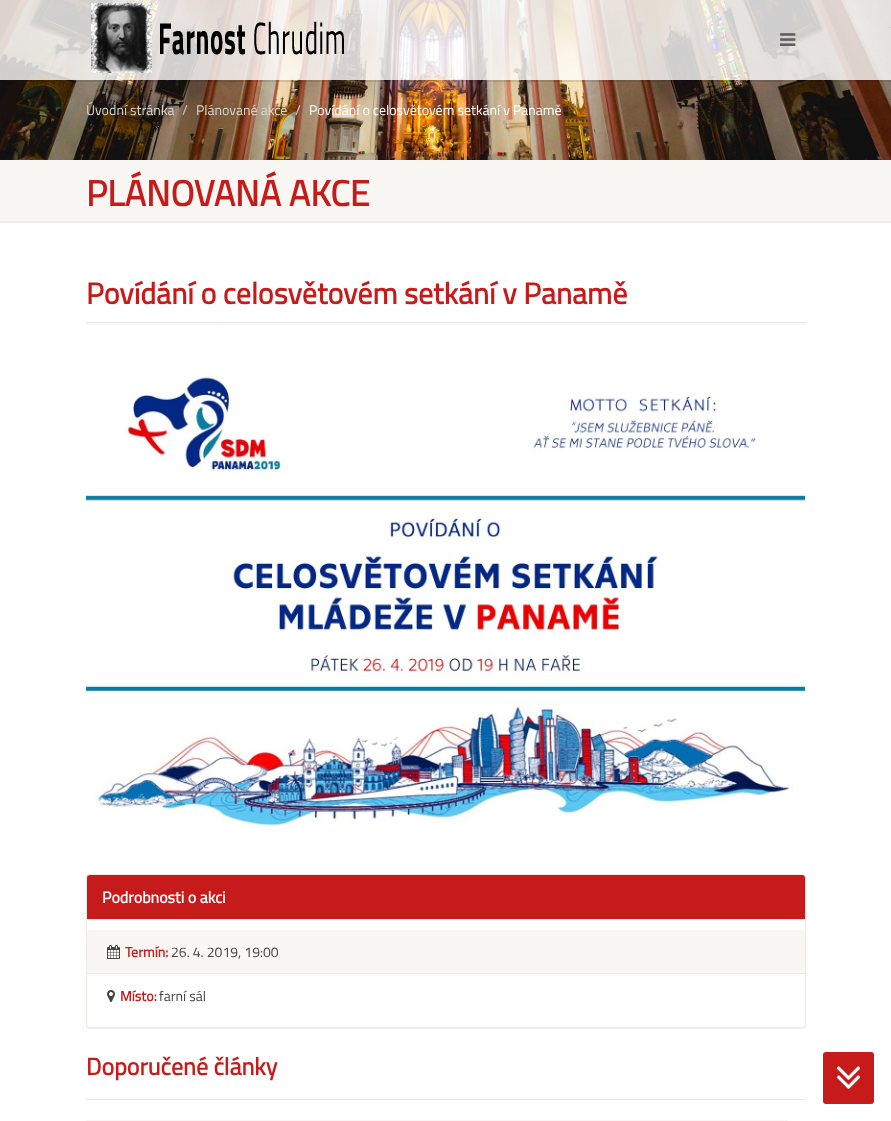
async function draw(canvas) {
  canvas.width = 891;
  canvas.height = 1121;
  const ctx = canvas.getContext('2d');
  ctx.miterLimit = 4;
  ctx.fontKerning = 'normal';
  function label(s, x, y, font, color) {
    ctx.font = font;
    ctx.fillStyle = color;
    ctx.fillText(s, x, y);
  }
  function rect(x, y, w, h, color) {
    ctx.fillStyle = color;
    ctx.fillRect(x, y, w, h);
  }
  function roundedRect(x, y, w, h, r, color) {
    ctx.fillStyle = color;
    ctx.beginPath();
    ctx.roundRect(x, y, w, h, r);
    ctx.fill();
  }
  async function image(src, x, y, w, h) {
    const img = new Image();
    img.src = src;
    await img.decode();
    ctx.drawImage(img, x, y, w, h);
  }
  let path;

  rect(0, 0, 891, 1121, '#fff');
  await image('assets/img3.png', 0, 0, 891, 160);
  rect(18, 80, 873, 2, '#0000001a');
  rect(0, 0, 891, 80, '#ffffffcc');
  await image('assets/img1.png', 91, 3, 253, 70);
  await image('assets/img2.png', 780, 33, 16, 13);
  label('Úvodní stránka', 86, 115, '14px Titillium Web', '#d8d6d1');
  label('/', 182, 115, '14px Titillium Web', '#ccc');
  label('Plánované akce', 196, 115, '14px Titillium Web', '#d8d6d1');
  label('/', 295, 115, '14px Titillium Web', '#ccc');
  label('Povídání o celosvětovém setkání v Panamě', 309, 115, '14px Titillium Web', '#fff');
  rect(0, 221, 891, 2, '#ededed');
  rect(0, 160, 891, 61, '#f8f7f3');
  label('PLÁNOVANÁ AKCE', 86, 206, 'bold 36px Titillium Web', '#c71b1b');
  rect(86, 322, 720, 1, '#eceae4');
  label('Povídání o celosvětovém setkání v Panamě', 86, 304, 'bold 30px Titillium Web', '#c71b1b');
  rect(86, 323, 720, 2, '#f8f7f3');
  await image('assets/img4.png', 86, 376, 719, 453);
  ctx.fillStyle = '#0000000d';
  ctx.filter = 'blur(0.5px)';
  ctx.beginPath();
  ctx.roundRect(86, 875, 720, 154, 3);
  ctx.fill();
  ctx.filter = 'none';
  ctx.fillStyle = '#fff';
  ctx.beginPath();
  ctx.roundRect(86.5, 874.5, 719, 153, 2.5);
  ctx.fill();
  ctx.strokeStyle = '#eceae4';
  ctx.stroke();
  ctx.fillStyle = '#c71b1b';
  ctx.beginPath();
  ctx.roundRect(87, 875, 718, 45, [3, 3, 0, 0]);
  ctx.fill();
  rect(87, 919, 718, 1, '#eceae4');
  label('Podrobnosti o akci', 102, 903, 'bold 16px Titillium Web', '#fff');
  rect(87, 930, 718, 43, '#f8f7f3');
  rect(87, 973, 718, 1, '#eceae4');
  await image('assets/img5.png', 107, 945, 13, 14);
  label('Termín:', 125, 957, 'bold 14px Titillium Web', '#c71b1b');
  label('26. 4. 2019, 19:00', 171, 957, '14px Titillium Web', '#444');
  await image('assets/img6.png', 107, 990, 8, 12);
  label('Místo:', 120, 1001, 'bold 14px Titillium Web', '#c71b1b');
  label('farní sál', 159, 1001, '14px Titillium Web', '#444');
  rect(86, 1099, 720, 1, '#eceae4');
  label('Doporučené články', 86, 1075, 'bold 24px Titillium Web', '#c71b1b');
  rect(86, 1120, 702, 1, '#f8f7f3');
  ctx.fillStyle = '#eceae4';
  path = new Path2D('M806 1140H786V1120Z');
  ctx.fill(path);
  ctx.fillStyle = '#fff';
  path = new Path2D('M787 1120H806V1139Z');
  ctx.fill(path);
  roundedRect(823, 1052, 51, 52, 3, '#c71b1b');
  await image('assets/img7.png', 836, 1066, 25, 23);
}

draw(document.querySelector('canvas'));
